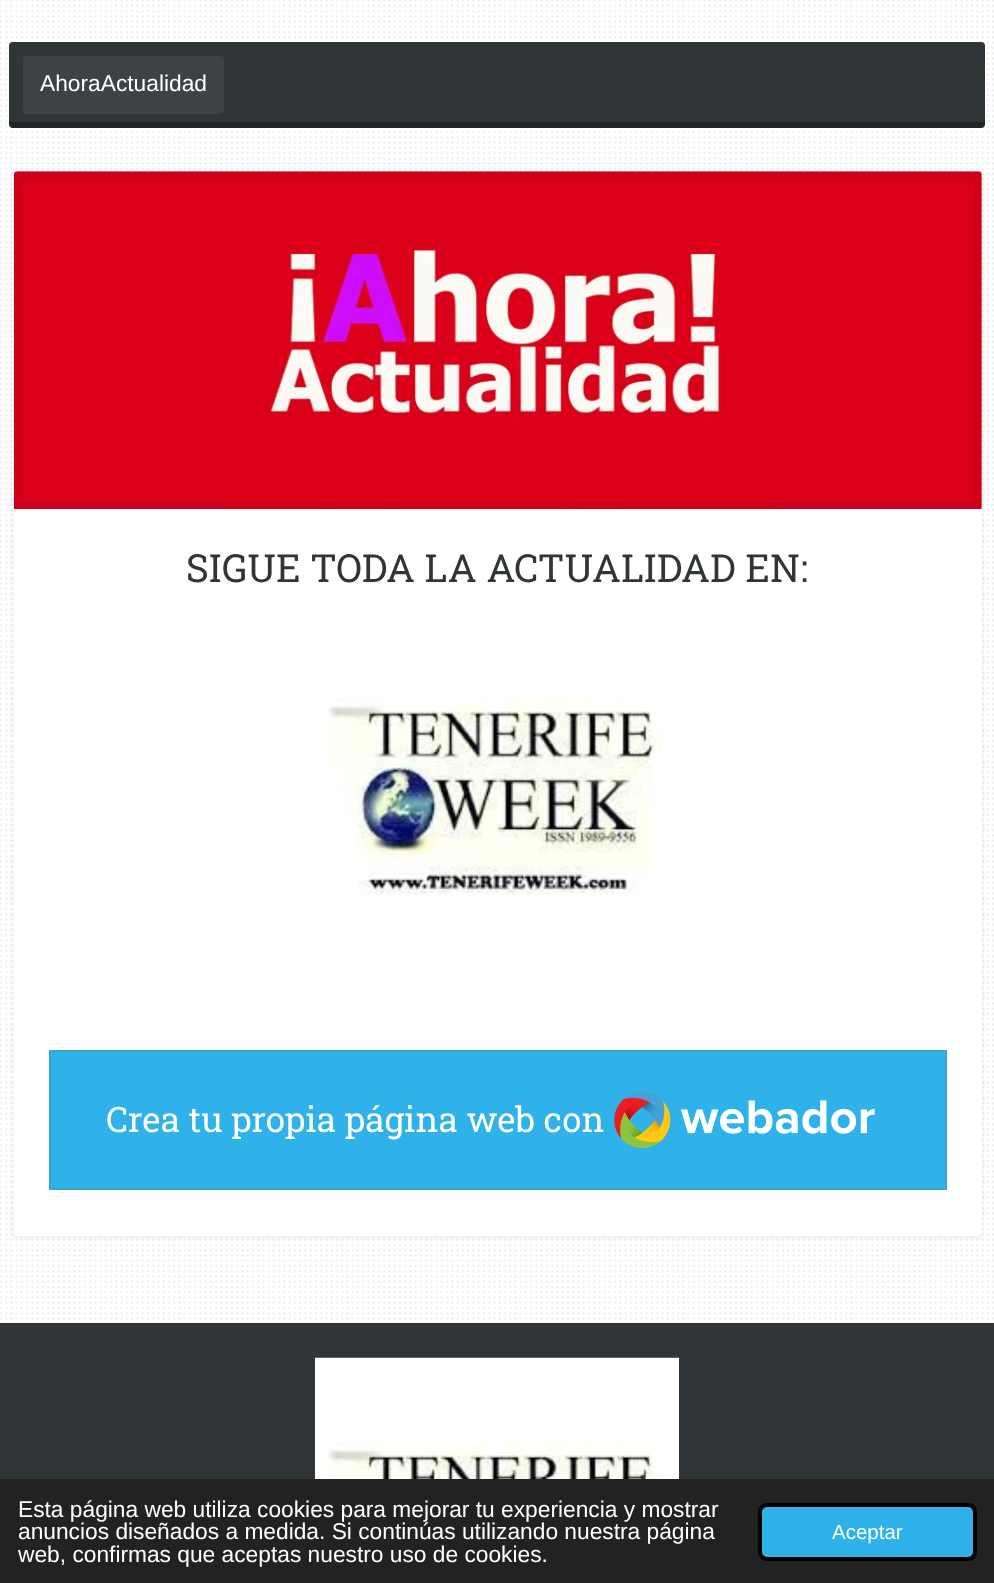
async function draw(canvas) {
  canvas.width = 994;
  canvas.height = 1583;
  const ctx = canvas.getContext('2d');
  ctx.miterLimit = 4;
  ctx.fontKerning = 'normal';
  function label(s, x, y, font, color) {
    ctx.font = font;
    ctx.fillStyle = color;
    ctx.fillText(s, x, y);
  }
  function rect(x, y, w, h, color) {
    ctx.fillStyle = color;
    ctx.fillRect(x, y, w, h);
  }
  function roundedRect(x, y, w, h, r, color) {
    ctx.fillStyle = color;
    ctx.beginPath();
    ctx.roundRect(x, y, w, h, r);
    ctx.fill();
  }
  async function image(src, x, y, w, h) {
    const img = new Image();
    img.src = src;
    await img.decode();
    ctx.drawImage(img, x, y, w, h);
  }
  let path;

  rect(0, 0, 994, 1583, '#fff');
  await image('assets/img1.png', 0, 0, 994, 1323);
  roundedRect(9, 42, 976, 86, 4, '#303537');
  ctx.fillStyle = '#0000004d';
  path = new Path2D('M9 119V124C9 126 11 128 13 128H981C983 128 985 126 985 124V119C985 121 984 122 982 122H12C10 122 9 121 9 119Z');
  ctx.fill(path);
  roundedRect(23, 56, 201, 58, 4, '#3c4245');
  label('AhoraActualidad', 40, 91, '22.75px Liberation Sans', '#fff');
  ctx.fillStyle = '#0000001a';
  ctx.filter = 'blur(2.5px)';
  ctx.beginPath();
  ctx.rect(14, 173, 968, 1064);
  ctx.fill();
  ctx.filter = 'none';
  await image('assets/img2.png', 14, 171, 968, 338);
  path = new Path2D('M18.5 176H977.5V505H18.5Z');
  ctx.strokeStyle = '#0000000d';
  ctx.lineWidth = 8.8;
  ctx.stroke(path);
  ctx.fillStyle = '#fff';
  ctx.beginPath();
  ctx.roundRect(14, 509, 968, 727, [0, 0, 4, 4]);
  ctx.fill();
  label('SIGUE TODA LA ACTUALIDAD EN:', 186, 582, '38.7px Roboto Slab', '#303537');
  await image('assets/img3.png', 325, 697, 337, 198);
  rect(49, 1050, 898, 140, '#2eb2e9');
  ctx.beginPath();
  ctx.roundRect(50, 1051, 896, 138, 4);
  ctx.strokeStyle = '#38a3d0';
  ctx.lineWidth = 2;
  ctx.stroke();
  label('Crea tu propia página web con', 106, 1132, '35px Roboto Slab', '#fff');
  await image('assets/img4.png', 614, 1092, 261, 56);
  rect(0, 1323, 994, 156, '#303537');
  await image('assets/img5.png', 315, 1357, 364, 122);
  rect(0, 1479, 994, 104, '#222');
  label('Esta página web utiliza cookies para mejorar tu experiencia y mostrar', 18, 1517, '22.75px Liberation Sans', '#fff');
  label('anuncios diseñados a medida. Si continúas utilizando nuestra página', 18, 1539, '22.75px Liberation Sans', '#fff');
  label('web, confirmas que aceptas nuestro uso de cookies.', 18, 1562, '22.75px Liberation Sans', '#fff');
  ctx.fillStyle = '#2eb2e9';
  ctx.beginPath();
  ctx.roundRect(760, 1505, 215, 54, 7);
  ctx.fill();
  ctx.strokeStyle = '#000';
  ctx.lineWidth = 4;
  ctx.stroke();
  label('Aceptar', 832, 1539, '20.5px Liberation Sans', '#fff');
}

draw(document.querySelector('canvas'));
